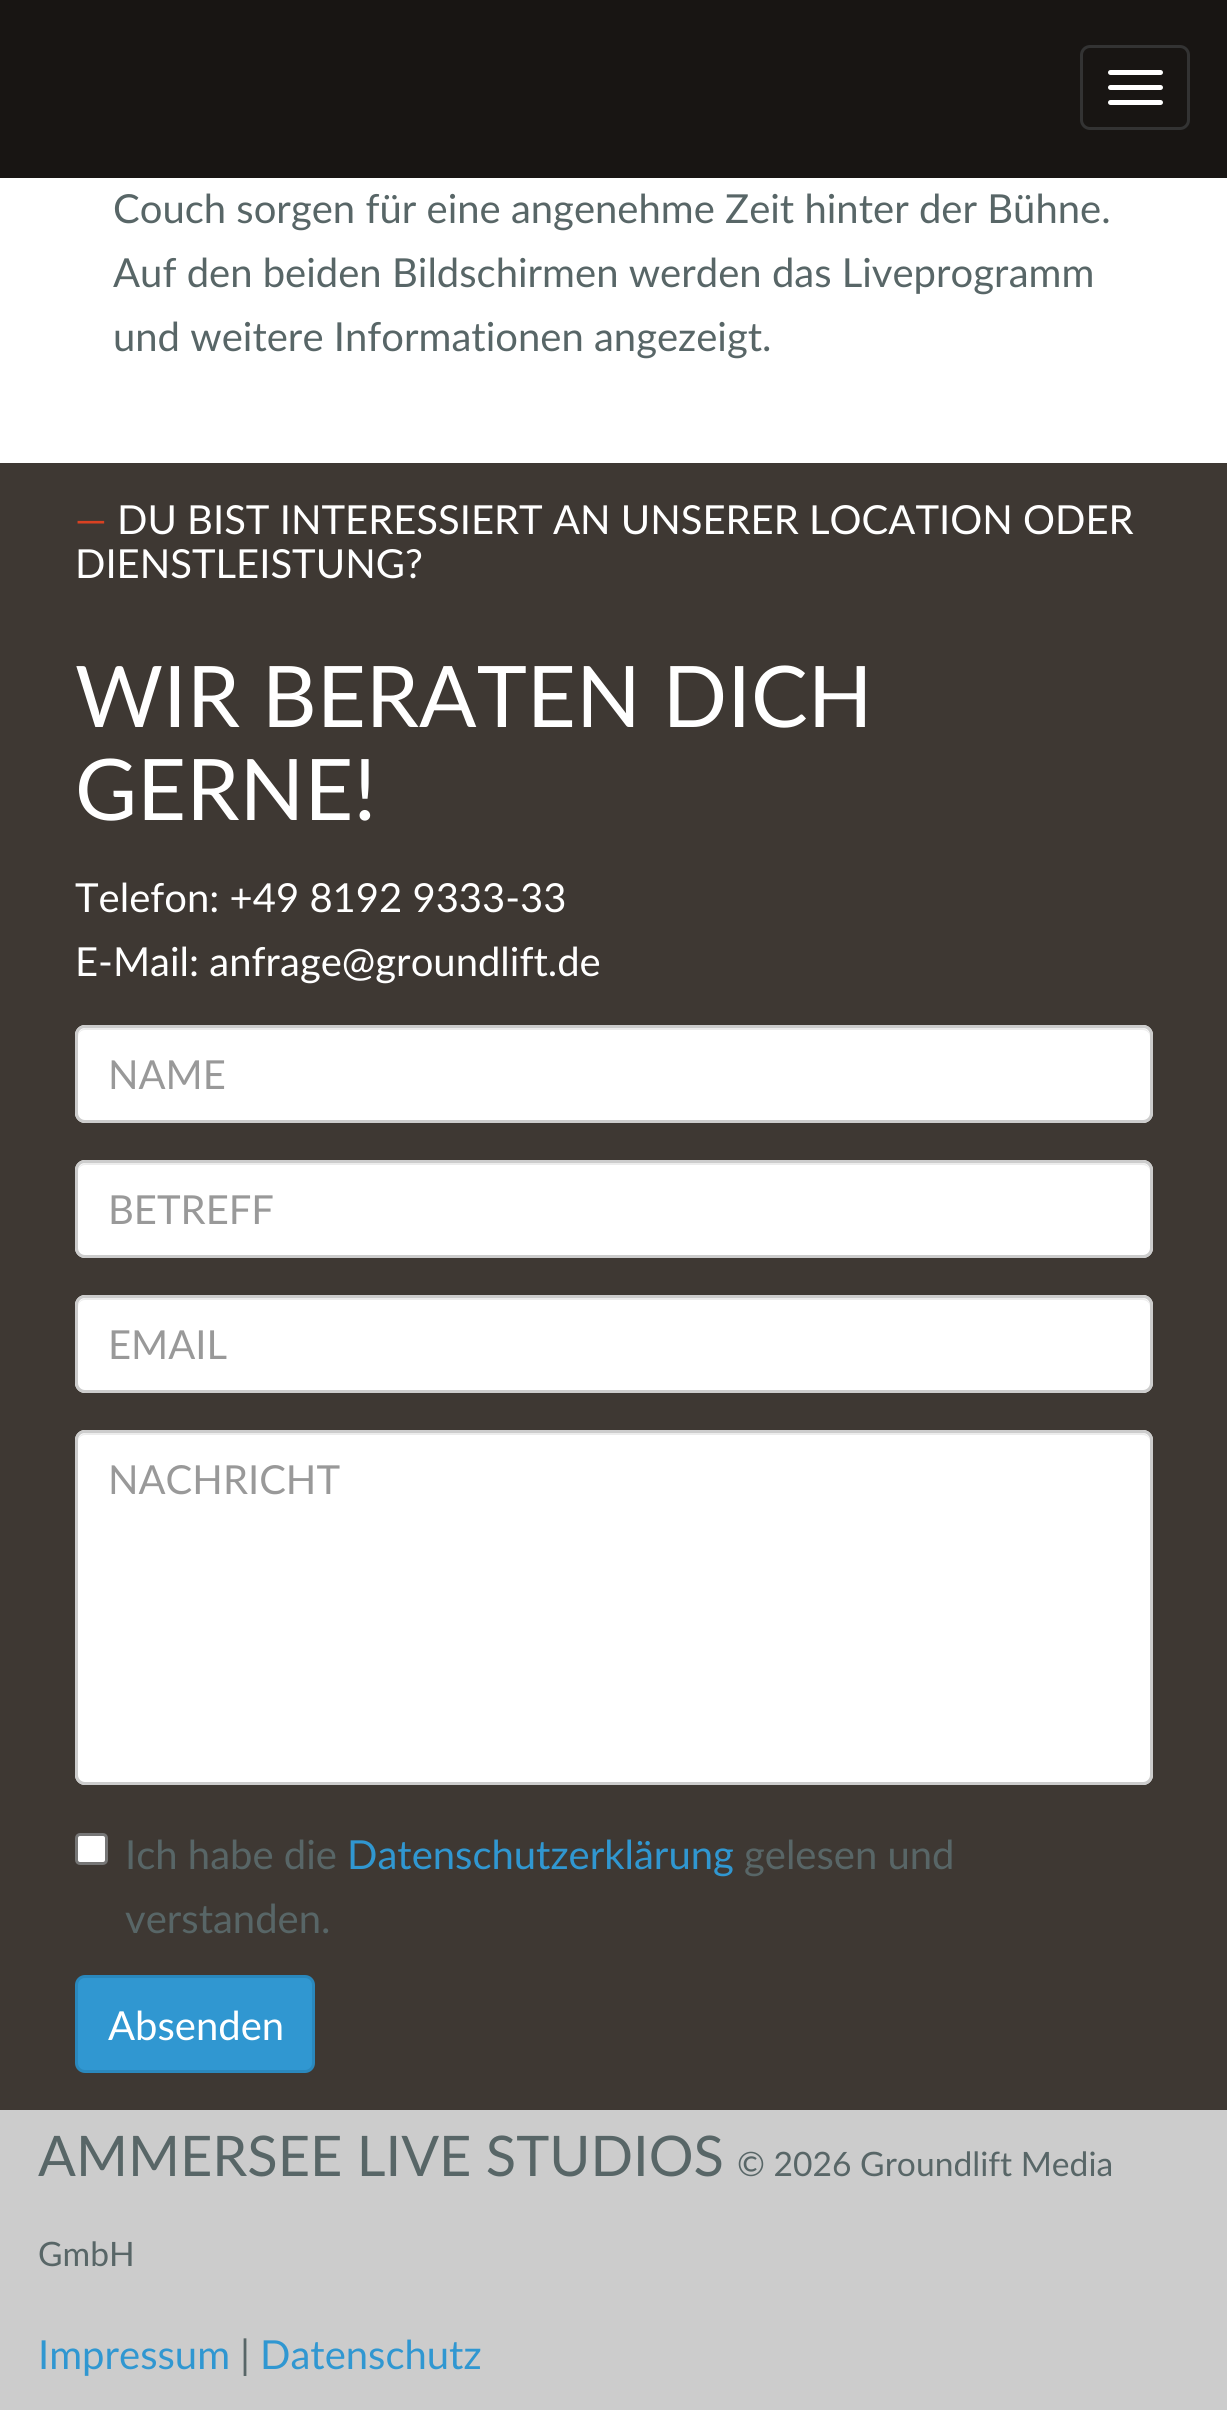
import math
import cairocffi as cairo

surface = cairo.ImageSurface(cairo.FORMAT_RGB24, 1227, 2417)
cr = cairo.Context(surface)
options = cairo.FontOptions()
options.set_hint_metrics(cairo.HINT_METRICS_OFF)
options.set_hint_style(cairo.HINT_STYLE_NONE)
cr.set_font_options(options)
cr.set_miter_limit(4)


def use_color(code):
    cr.set_source_rgb(*(v / 255 for v in bytes.fromhex(code[-6:])))


def round_rect(x, y, w, h, r):
    cr.new_sub_path()
    for i, (u, v) in enumerate([(x + w - r, y + h - r), (x + r, y + h - r), (x + r, y + r), (x + w - r, y + r)]):
        cr.arc(u, v, r, i * math.pi / 2, (i + 1) * math.pi / 2)
    cr.close_path()


use_color("#ffffff")
cr.paint()
use_color("#181513")
cr.rectangle(0, 0, 1227, 178)
cr.fill()
round_rect(1081.5, 46.5, 107, 82, 8.5)
use_color("#333333")
cr.set_line_width(3)
cr.stroke()
use_color("#ffffff")
round_rect(1108, 70, 55, 5, 2.5)
cr.fill()
round_rect(1108, 85, 55, 5, 2.5)
cr.fill()
round_rect(1108, 100, 55, 5, 2.5)
cr.fill()
cr.select_font_face("Lato")
cr.set_font_size(40)
use_color("#586667")
cr.move_to(113, 223)
cr.show_text("Couch sorgen für eine angenehme Zeit hinter der Bühne.")
cr.move_to(113, 287)
cr.show_text("Auf den beiden Bildschirmen werden das Liveprogramm")
cr.move_to(113, 351)
cr.show_text("und weitere Informationen angezeigt.")
use_color("#3e3833")
cr.rectangle(0, 463, 1227, 1647)
cr.fill()
use_color("#d94122")
cr.move_to(75, 534)
cr.show_text("—")
use_color("#ffffff")
cr.move_to(117, 534)
cr.show_text("DU BIST INTERESSIERT AN UNSERER LOCATION ODER")
cr.move_to(75, 578)
cr.show_text("DIENSTLEISTUNG?")
cr.set_font_size(85)
cr.move_to(75, 727)
cr.show_text("WIR BERATEN DICH")
cr.move_to(75, 820)
cr.show_text("GERNE!")
cr.set_font_size(40)
cr.move_to(75, 912)
cr.show_text("Telefon: +49 8192 9333-33")
cr.move_to(75, 976)
cr.show_text("E-Mail: anfrage@groundlift.de")
round_rect(75, 1025, 1078, 98, 10)
cr.fill()
use_color("#ececec")
cr.new_path()
cr.move_to(85, 1030)
cr.line_to(1142, 1030)
cr.curve_to(1147, 1030, 1150, 1033, 1150, 1038)
cr.line_to(1150, 1036)
cr.curve_to(1150, 1032, 1146, 1028, 1142, 1028)
cr.line_to(86, 1028)
cr.curve_to(82, 1028, 78, 1032, 78, 1036)
cr.line_to(78, 1038)
cr.curve_to(78, 1033, 81, 1030, 85, 1030)
cr.close_path()
cr.fill()
round_rect(76.5, 1026.5, 1075, 95, 8.5)
use_color("#cccccc")
cr.stroke()
use_color("#999999")
cr.move_to(108, 1089)
cr.show_text("NAME")
use_color("#ffffff")
round_rect(75, 1160, 1078, 98, 10)
cr.fill()
use_color("#ececec")
cr.new_path()
cr.move_to(85, 1165)
cr.line_to(1142, 1165)
cr.curve_to(1147, 1165, 1150, 1168, 1150, 1172)
cr.line_to(1150, 1171)
cr.curve_to(1150, 1167, 1146, 1163, 1142, 1163)
cr.line_to(86, 1163)
cr.curve_to(82, 1163, 78, 1167, 78, 1171)
cr.line_to(78, 1172)
cr.curve_to(78, 1168, 81, 1165, 85, 1165)
cr.close_path()
cr.fill()
round_rect(76.5, 1161.5, 1075, 95, 8.5)
use_color("#cccccc")
cr.stroke()
use_color("#999999")
cr.move_to(108, 1224)
cr.show_text("BETREFF")
use_color("#ffffff")
round_rect(75, 1295, 1078, 98, 10)
cr.fill()
use_color("#ececec")
cr.new_path()
cr.move_to(85, 1300)
cr.line_to(1142, 1300)
cr.curve_to(1147, 1300, 1150, 1303, 1150, 1308)
cr.line_to(1150, 1306)
cr.curve_to(1150, 1302, 1146, 1298, 1142, 1298)
cr.line_to(86, 1298)
cr.curve_to(82, 1298, 78, 1302, 78, 1306)
cr.line_to(78, 1308)
cr.curve_to(78, 1303, 81, 1300, 85, 1300)
cr.close_path()
cr.fill()
round_rect(76.5, 1296.5, 1075, 95, 8.5)
use_color("#cccccc")
cr.stroke()
use_color("#999999")
cr.move_to(108, 1359)
cr.show_text("EMAIL")
use_color("#ffffff")
round_rect(75, 1430, 1078, 355, 10)
cr.fill()
use_color("#ececec")
cr.new_path()
cr.move_to(85, 1435)
cr.line_to(1142, 1435)
cr.curve_to(1147, 1435, 1150, 1438, 1150, 1442)
cr.line_to(1150, 1441)
cr.curve_to(1150, 1437, 1146, 1433, 1142, 1433)
cr.line_to(86, 1433)
cr.curve_to(82, 1433, 78, 1437, 78, 1441)
cr.line_to(78, 1442)
cr.curve_to(78, 1438, 81, 1435, 85, 1435)
cr.close_path()
cr.fill()
round_rect(76.5, 1431.5, 1075, 352, 8.5)
use_color("#cccccc")
cr.stroke()
use_color("#999999")
cr.move_to(108, 1494)
cr.show_text("NACHRICHT")
use_color("#ffffff")
round_rect(76.5, 1834.5, 30, 29, 3.5)
cr.fill_preserve()
use_color("#767676")
cr.stroke()
use_color("#586667")
cr.move_to(125, 1869)
cr.show_text("Ich habe die")
use_color("#3097d1")
cr.move_to(347, 1869)
cr.show_text("Datenschutzerklärung")
use_color("#586667")
cr.move_to(744, 1869)
cr.show_text("gelesen und")
cr.move_to(125, 1933)
cr.show_text("verstanden.")
use_color("#3097d1")
round_rect(76.5, 1976.5, 237, 95, 8.5)
cr.fill_preserve()
use_color("#2a88bd")
cr.stroke()
use_color("#ffffff")
cr.move_to(108, 2040)
cr.show_text("Absenden")
use_color("#cccccc")
cr.rectangle(0, 2110, 1227, 300)
cr.fill()
cr.set_font_size(56)
use_color("#586667")
cr.move_to(38, 2176)
cr.show_text("AMMERSEE LIVE STUDIOS")
cr.set_font_size(33.6)
cr.move_to(737, 2176)
cr.show_text("© 2026 Groundlift Media")
cr.move_to(38, 2266)
cr.show_text("GmbH")
cr.set_font_size(40)
use_color("#3097d1")
cr.move_to(38, 2369)
cr.show_text("Impressum")
use_color("#586667")
cr.move_to(240, 2369)
cr.show_text("|")
use_color("#3097d1")
cr.move_to(260, 2369)
cr.show_text("Datenschutz")
surface.write_to_png("result.png")
